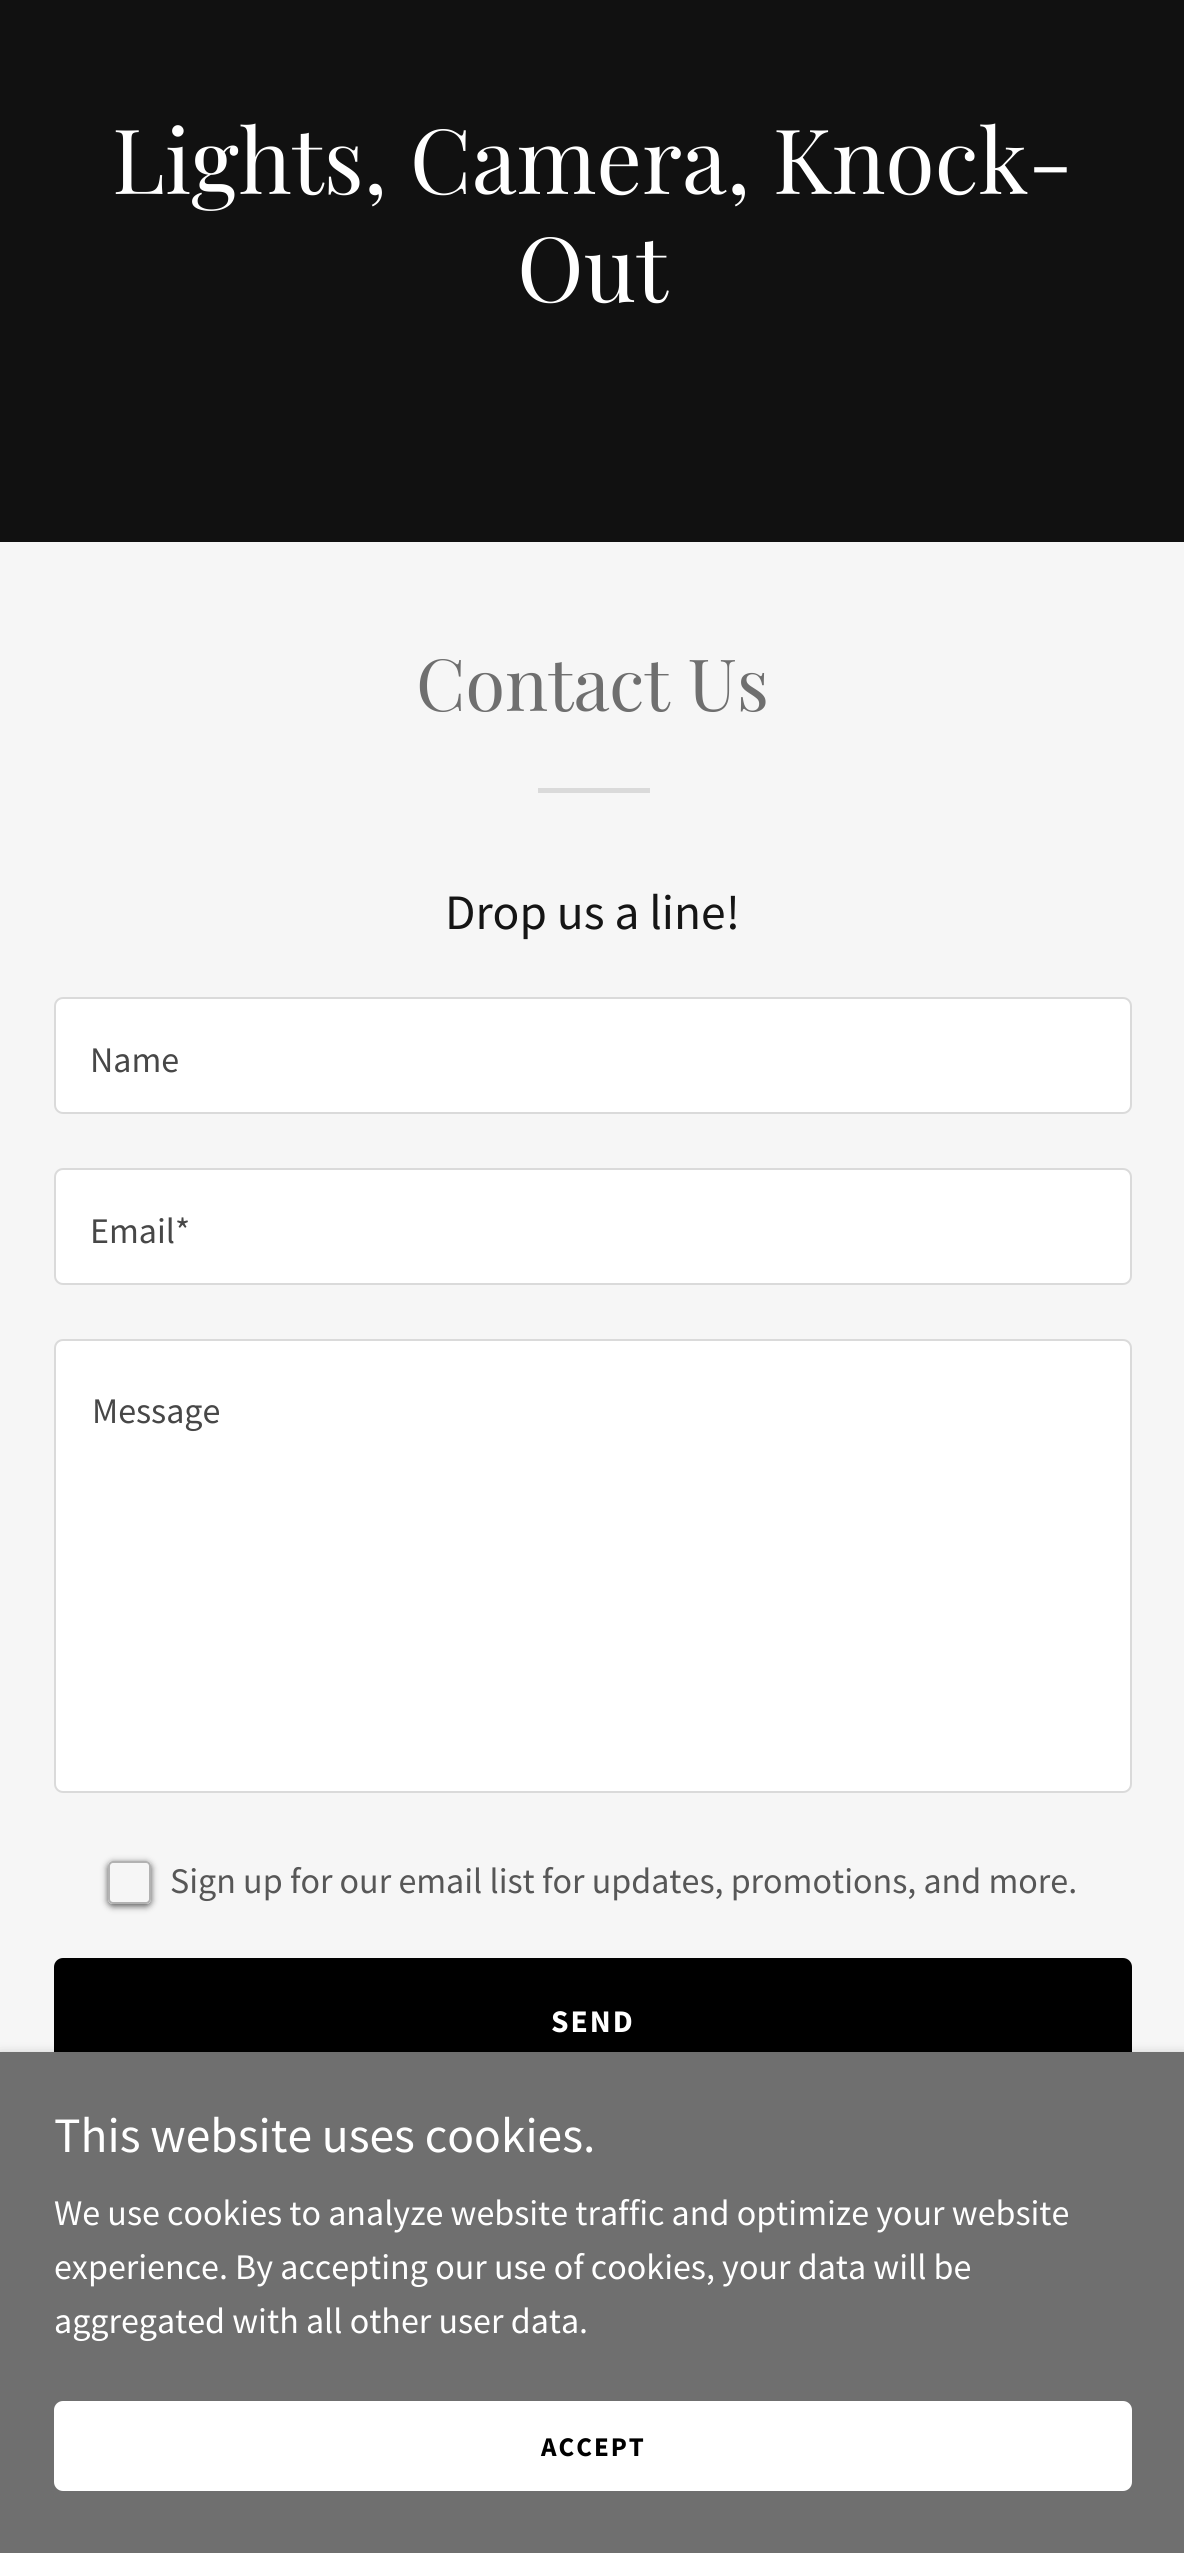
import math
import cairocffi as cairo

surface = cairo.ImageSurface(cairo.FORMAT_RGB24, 1184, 2553)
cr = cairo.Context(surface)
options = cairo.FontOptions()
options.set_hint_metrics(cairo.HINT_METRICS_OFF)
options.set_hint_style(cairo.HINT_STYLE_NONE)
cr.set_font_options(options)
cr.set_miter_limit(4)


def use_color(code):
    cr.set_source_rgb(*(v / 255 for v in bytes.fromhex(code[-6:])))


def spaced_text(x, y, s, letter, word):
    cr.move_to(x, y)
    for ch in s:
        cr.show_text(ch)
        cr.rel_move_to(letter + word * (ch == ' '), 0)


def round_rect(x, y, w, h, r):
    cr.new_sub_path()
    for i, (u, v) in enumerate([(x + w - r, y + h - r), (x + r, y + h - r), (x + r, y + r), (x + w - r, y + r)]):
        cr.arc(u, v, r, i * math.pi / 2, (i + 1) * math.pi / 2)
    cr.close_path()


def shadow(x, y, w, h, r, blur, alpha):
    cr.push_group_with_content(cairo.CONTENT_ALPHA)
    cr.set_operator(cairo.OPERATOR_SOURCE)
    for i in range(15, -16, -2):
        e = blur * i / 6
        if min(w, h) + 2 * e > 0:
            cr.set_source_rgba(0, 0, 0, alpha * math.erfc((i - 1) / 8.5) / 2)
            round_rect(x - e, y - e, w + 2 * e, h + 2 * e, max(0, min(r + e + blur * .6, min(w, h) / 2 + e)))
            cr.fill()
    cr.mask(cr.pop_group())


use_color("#f6f6f6")
cr.paint()
use_color("#111111")
cr.rectangle(0, 0, 1184, 542)
cr.fill()
cr.select_font_face("Playfair Display")
cr.set_font_size(90)
use_color("#ffffff")
cr.move_to(112, 194)
cr.show_text("Lights, Camera, Knock-")
cr.move_to(517, 302)
cr.show_text("Out")
cr.set_font_size(72)
use_color("#6f6f6f")
cr.move_to(416, 711)
cr.show_text("Contact Us")
use_color("#dadada")
cr.rectangle(538, 788, 112, 5)
cr.fill()
cr.select_font_face("Source Sans Pro")
cr.set_font_size(49.5)
use_color("#151515")
cr.move_to(445, 929)
cr.show_text("Drop us a line!")
use_color("#ffffff")
round_rect(55, 998, 1076, 115, 8)
cr.fill_preserve()
use_color("#dadada")
cr.stroke()
cr.set_font_size(36)
use_color("#474747")
cr.move_to(90, 1072)
cr.show_text("Name")
use_color("#ffffff")
round_rect(55, 1169, 1076, 115, 8)
cr.fill_preserve()
use_color("#dadada")
cr.stroke()
use_color("#474747")
cr.move_to(90, 1243)
cr.show_text("Email*")
use_color("#ffffff")
round_rect(55, 1340, 1076, 452, 8)
cr.fill_preserve()
use_color("#dadada")
cr.stroke()
use_color("#474747")
cr.move_to(92, 1423)
cr.show_text("Message")
cr.save()
cr.set_fill_rule(cairo.FILL_RULE_EVEN_ODD)
cr.new_path()
cr.move_to(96, 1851)
cr.line_to(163, 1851)
cr.line_to(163, 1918)
cr.line_to(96, 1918)
cr.close_path()
cr.move_to(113, 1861)
cr.line_to(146, 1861)
cr.curve_to(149, 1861, 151, 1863, 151, 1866)
cr.line_to(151, 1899)
cr.curve_to(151, 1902, 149, 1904, 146, 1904)
cr.line_to(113, 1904)
cr.curve_to(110, 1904, 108, 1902, 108, 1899)
cr.line_to(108, 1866)
cr.curve_to(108, 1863, 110, 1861, 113, 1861)
cr.close_path()
cr.clip()
use_color("#525252")
shadow(108, 1863, 43, 43, 5, 3.5, 1)
cr.restore()
round_rect(109, 1862, 41, 41, 4)
cr.set_source_rgba(0.435, 0.435, 0.435, 0.5)
cr.stroke()
use_color("#575757")
cr.move_to(170, 1893)
cr.show_text("Sign up for our email list for updates, promotions, and more.")
use_color("#000000")
round_rect(54, 1958, 1078, 126, 9)
cr.fill()
cr.select_font_face("Source Sans Pro", cairo.FONT_SLANT_NORMAL, cairo.FONT_WEIGHT_BOLD)
cr.set_font_size(31.5)
use_color("#ffffff")
spaced_text(551, 2032, "SEND", 2, 0)
use_color("#000000")
shadow(0, 2057, 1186, 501, 0, 7, 0.3)
use_color("#6f6f6f")
cr.rectangle(0, 2052, 1184, 501)
cr.fill()
cr.select_font_face("Source Sans Pro")
cr.set_font_size(49.5)
use_color("#ffffff")
cr.move_to(54, 2152)
cr.show_text("This website uses cookies.")
cr.set_font_size(36)
cr.move_to(54, 2225)
cr.show_text("We use cookies to analyze website traffic and optimize your website")
cr.move_to(54, 2279)
cr.show_text("experience. By accepting our use of cookies, your data will be")
cr.move_to(54, 2333)
cr.show_text("aggregated with all other user data.")
round_rect(54, 2401, 1078, 90, 9)
cr.fill()
cr.select_font_face("Source Sans Pro", cairo.FONT_SLANT_NORMAL, cairo.FONT_WEIGHT_BOLD)
cr.set_font_size(27)
use_color("#000000")
spaced_text(541, 2456, "ACCEPT", 2, 0)
surface.write_to_png("result.png")
